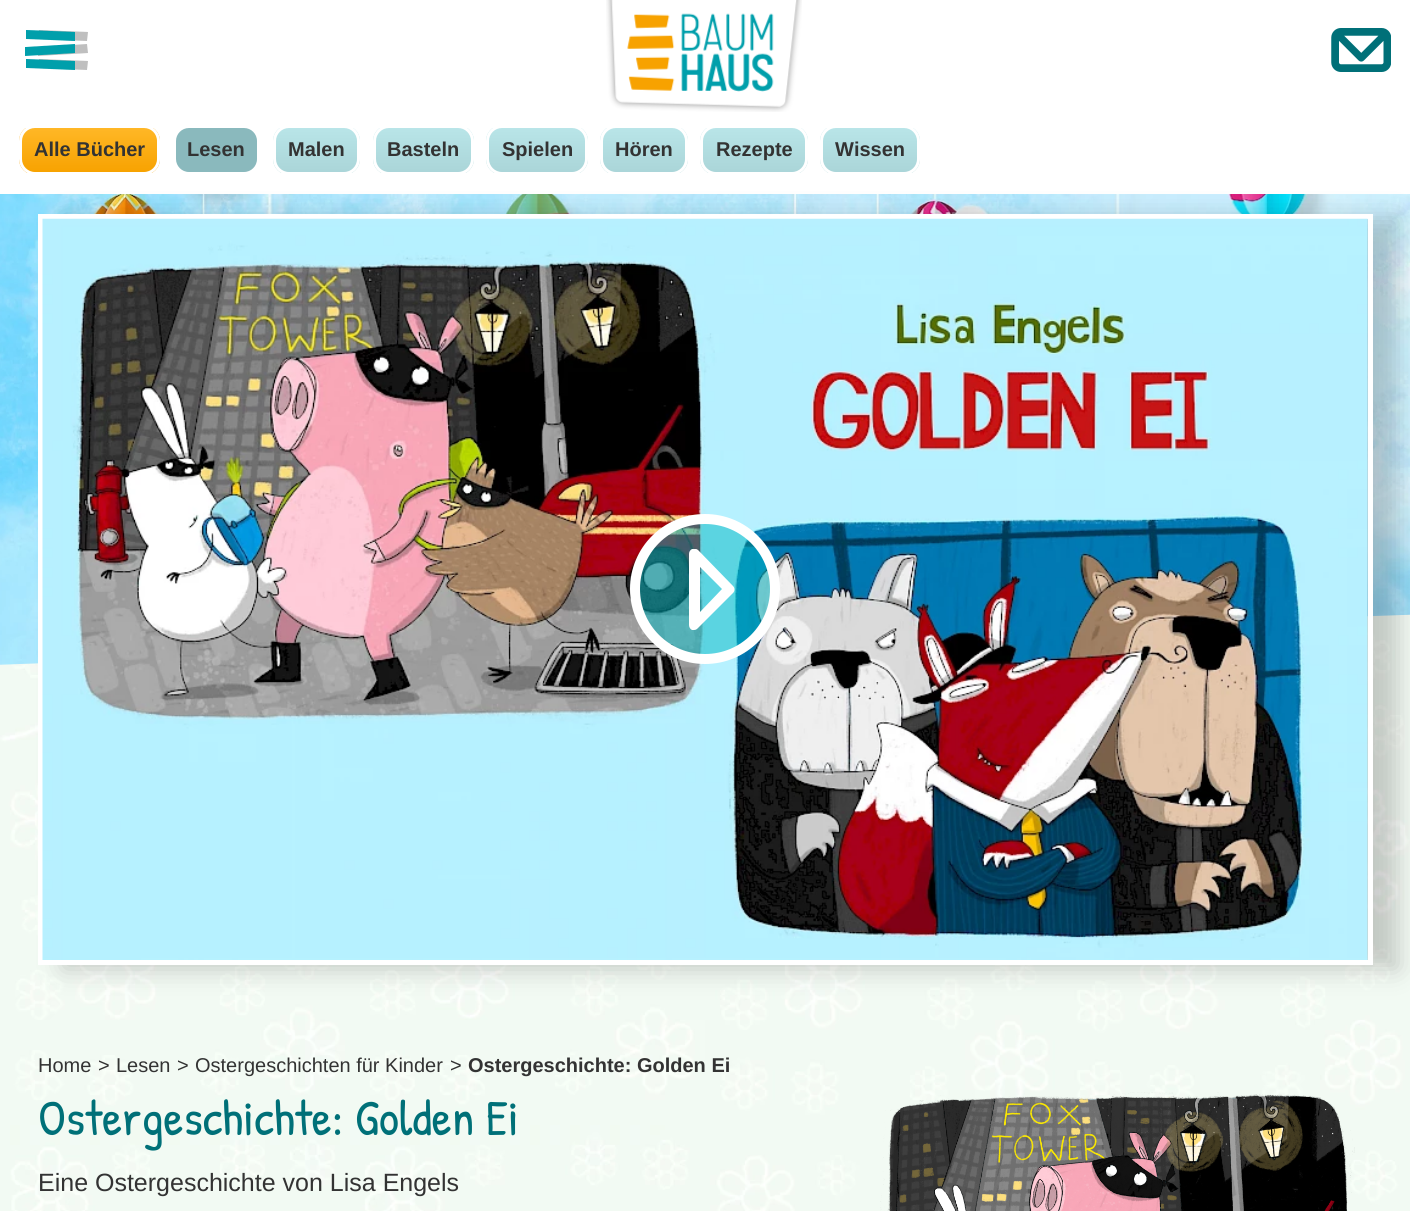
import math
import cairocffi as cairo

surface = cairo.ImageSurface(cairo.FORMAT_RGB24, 1410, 1211)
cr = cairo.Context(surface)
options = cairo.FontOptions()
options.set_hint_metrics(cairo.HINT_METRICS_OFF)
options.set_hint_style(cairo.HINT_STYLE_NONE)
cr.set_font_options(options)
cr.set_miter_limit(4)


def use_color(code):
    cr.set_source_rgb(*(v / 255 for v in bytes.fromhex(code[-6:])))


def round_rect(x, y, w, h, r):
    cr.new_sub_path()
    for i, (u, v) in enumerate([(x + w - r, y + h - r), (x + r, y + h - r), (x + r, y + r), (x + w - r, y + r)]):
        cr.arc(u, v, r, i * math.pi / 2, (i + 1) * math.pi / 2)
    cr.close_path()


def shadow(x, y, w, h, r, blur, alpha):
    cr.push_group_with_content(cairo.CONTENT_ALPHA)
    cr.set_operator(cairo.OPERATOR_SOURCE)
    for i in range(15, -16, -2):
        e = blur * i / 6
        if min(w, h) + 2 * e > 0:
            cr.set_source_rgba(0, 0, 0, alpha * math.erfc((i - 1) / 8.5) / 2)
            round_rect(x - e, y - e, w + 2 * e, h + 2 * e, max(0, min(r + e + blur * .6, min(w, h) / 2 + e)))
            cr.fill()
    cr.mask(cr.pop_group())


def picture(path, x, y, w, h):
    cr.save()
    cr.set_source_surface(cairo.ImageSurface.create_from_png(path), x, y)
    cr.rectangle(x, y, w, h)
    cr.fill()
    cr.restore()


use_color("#ffffff")
cr.paint()
use_color("#bfbfbf")
cr.new_path()
cr.move_to(39, 30)
cr.line_to(88, 32)
cr.line_to(87, 41)
cr.line_to(38, 39)
cr.close_path()
cr.move_to(38, 47)
cr.line_to(87, 44)
cr.line_to(88, 53)
cr.line_to(38, 56)
cr.close_path()
cr.move_to(39, 59)
cr.line_to(88, 61)
cr.line_to(87, 70)
cr.line_to(38, 68)
cr.close_path()
cr.fill()
use_color("#009fab")
cr.new_path()
cr.move_to(26, 30)
cr.line_to(75, 32)
cr.line_to(75, 41)
cr.line_to(26, 39)
cr.close_path()
cr.move_to(25, 47)
cr.line_to(75, 44)
cr.line_to(75, 53)
cr.line_to(25, 56)
cr.close_path()
cr.move_to(26, 59)
cr.line_to(75, 61)
cr.line_to(75, 70)
cr.line_to(26, 68)
cr.close_path()
cr.fill()
picture("img1.png", 606, 0, 196, 112)
picture("img2.png", 1331, 28, 60, 44)
cr.save()
round_rect(19, 125, 141, 50, 16)
cr.clip()
gradient = cairo.LinearGradient(89, 128, 89, 173)
gradient.add_color_stop_rgba(0, 1, 0.718, 0.149, 1)
gradient.add_color_stop_rgba(1, 0.969, 0.635, 0, 1)
cr.set_source(gradient)
cr.rectangle(19, 128, 141, 45)
cr.fill()
cr.restore()
round_rect(20.5, 126.5, 138, 47, 14.5)
use_color("#ffffff")
cr.set_line_width(3)
cr.stroke()
cr.select_font_face("Liberation Sans", cairo.FONT_SLANT_NORMAL, cairo.FONT_WEIGHT_BOLD)
cr.set_font_size(20)
use_color("#333333")
cr.move_to(34, 156)
cr.show_text("Alle Bücher")
use_color("#8ab9bd")
round_rect(174.5, 126.5, 84, 47, 14.5)
cr.fill_preserve()
use_color("#ffffff")
cr.stroke()
use_color("#333333")
cr.move_to(187, 156)
cr.show_text("Lesen")
cr.save()
round_rect(273, 125, 87, 50, 16)
cr.clip()
gradient = cairo.LinearGradient(316, 128, 316, 173)
gradient.add_color_stop_rgba(0, 0.725, 0.898, 0.91, 1)
gradient.add_color_stop_rgba(1, 0.667, 0.835, 0.847, 1)
cr.set_source(gradient)
cr.rectangle(273, 128, 87, 45)
cr.fill()
cr.restore()
round_rect(274.5, 126.5, 84, 47, 14.5)
use_color("#ffffff")
cr.stroke()
use_color("#333333")
cr.move_to(288, 156)
cr.show_text("Malen")
cr.save()
round_rect(373, 125, 101, 50, 16)
cr.clip()
gradient = cairo.LinearGradient(423, 128, 423, 173)
gradient.add_color_stop_rgba(0, 0.725, 0.898, 0.91, 1)
gradient.add_color_stop_rgba(1, 0.667, 0.835, 0.847, 1)
cr.set_source(gradient)
cr.rectangle(373, 128, 101, 45)
cr.fill()
cr.restore()
round_rect(374.5, 126.5, 98, 47, 14.5)
use_color("#ffffff")
cr.stroke()
use_color("#333333")
cr.move_to(387, 156)
cr.show_text("Basteln")
cr.save()
round_rect(486, 125, 102, 50, 16)
cr.clip()
gradient = cairo.LinearGradient(537, 128, 537, 173)
gradient.add_color_stop_rgba(0, 0.725, 0.898, 0.91, 1)
gradient.add_color_stop_rgba(1, 0.667, 0.835, 0.847, 1)
cr.set_source(gradient)
cr.rectangle(486, 128, 102, 45)
cr.fill()
cr.restore()
round_rect(487.5, 126.5, 99, 47, 14.5)
use_color("#ffffff")
cr.stroke()
use_color("#333333")
cr.move_to(502, 156)
cr.show_text("Spielen")
cr.save()
round_rect(600, 125, 88, 50, 16)
cr.clip()
gradient = cairo.LinearGradient(644, 128, 644, 173)
gradient.add_color_stop_rgba(0, 0.725, 0.898, 0.91, 1)
gradient.add_color_stop_rgba(1, 0.667, 0.835, 0.847, 1)
cr.set_source(gradient)
cr.rectangle(600, 128, 88, 45)
cr.fill()
cr.restore()
round_rect(601.5, 126.5, 85, 47, 14.5)
use_color("#ffffff")
cr.stroke()
use_color("#333333")
cr.move_to(615, 156)
cr.show_text("Hören")
cr.save()
round_rect(700, 125, 108, 50, 16)
cr.clip()
gradient = cairo.LinearGradient(754, 128, 754, 173)
gradient.add_color_stop_rgba(0, 0.725, 0.898, 0.91, 1)
gradient.add_color_stop_rgba(1, 0.667, 0.835, 0.847, 1)
cr.set_source(gradient)
cr.rectangle(700, 128, 108, 45)
cr.fill()
cr.restore()
round_rect(701.5, 126.5, 105, 47, 14.5)
use_color("#ffffff")
cr.stroke()
use_color("#333333")
cr.move_to(716, 156)
cr.show_text("Rezepte")
cr.save()
round_rect(820, 125, 100, 50, 16)
cr.clip()
gradient = cairo.LinearGradient(870, 128, 870, 173)
gradient.add_color_stop_rgba(0, 0.725, 0.898, 0.91, 1)
gradient.add_color_stop_rgba(1, 0.667, 0.835, 0.847, 1)
cr.set_source(gradient)
cr.rectangle(820, 128, 100, 45)
cr.fill()
cr.restore()
round_rect(821.5, 126.5, 97, 47, 14.5)
use_color("#ffffff")
cr.stroke()
use_color("#333333")
cr.move_to(835, 156)
cr.show_text("Wissen")
picture("img5.png", 0, 614, 1410, 597)
picture("img4.png", 0, 194, 1410, 471)
use_color("#000000")
shadow(63, 218, 1335, 751, 0, 12.5, 0.2)
cr.rectangle(40.5, 216.5, 1330, 746)
use_color("#ffffff")
cr.set_line_width(5)
cr.stroke()
picture("img3.png", 42, 218, 1326, 742)
cr.set_source_rgba(0, 0.725, 0.769, 0.5)
cr.arc(705, 589, 70, 0, 2 * math.pi)
cr.fill_preserve()
use_color("#ffffff")
cr.set_line_width(10)
cr.stroke()
cr.save()
cr.rectangle(665, 549, 81, 81)
cr.clip()
cr.new_path()
cr.move_to(733, 586)
cr.line_to(698, 550)
cr.curve_to(697, 549, 694, 548, 692, 549)
cr.curve_to(690, 550, 689, 552, 689, 554)
cr.line_to(689, 625)
cr.curve_to(689, 627, 690, 629, 692, 630)
cr.line_to(694, 630)
cr.curve_to(696, 630, 697, 629, 698, 628)
cr.line_to(733, 593)
cr.curve_to(735, 591, 735, 588, 733, 586)
cr.close_path()
cr.move_to(722, 589)
cr.line_to(700, 612)
cr.line_to(700, 567)
cr.close_path()
cr.fill()
cr.restore()
cr.select_font_face("Liberation Sans")
use_color("#333333")
cr.move_to(38, 1072)
cr.show_text("Home")
cr.move_to(98, 1072)
cr.show_text(">")
cr.move_to(116, 1072)
cr.show_text("Lesen")
cr.move_to(177, 1072)
cr.show_text(">")
cr.move_to(195, 1072)
cr.show_text("Ostergeschichten für Kinder")
cr.move_to(450, 1072)
cr.show_text(">")
cr.select_font_face("Liberation Sans", cairo.FONT_SLANT_NORMAL, cairo.FONT_WEIGHT_BOLD)
cr.move_to(468, 1072)
cr.show_text("Ostergeschichte: Golden Ei")
cr.select_font_face("Patrick Hand")
cr.set_font_size(50)
use_color("#007078")
cr.move_to(38, 1135)
cr.show_text("Ostergeschichte: Golden Ei")
cr.select_font_face("Liberation Sans")
cr.set_font_size(25)
use_color("#333333")
cr.move_to(38, 1191)
cr.show_text("Eine Ostergeschichte von Lisa Engels")
picture("img6.png", 880, 1092, 475, 119)
surface.write_to_png("result.png")
